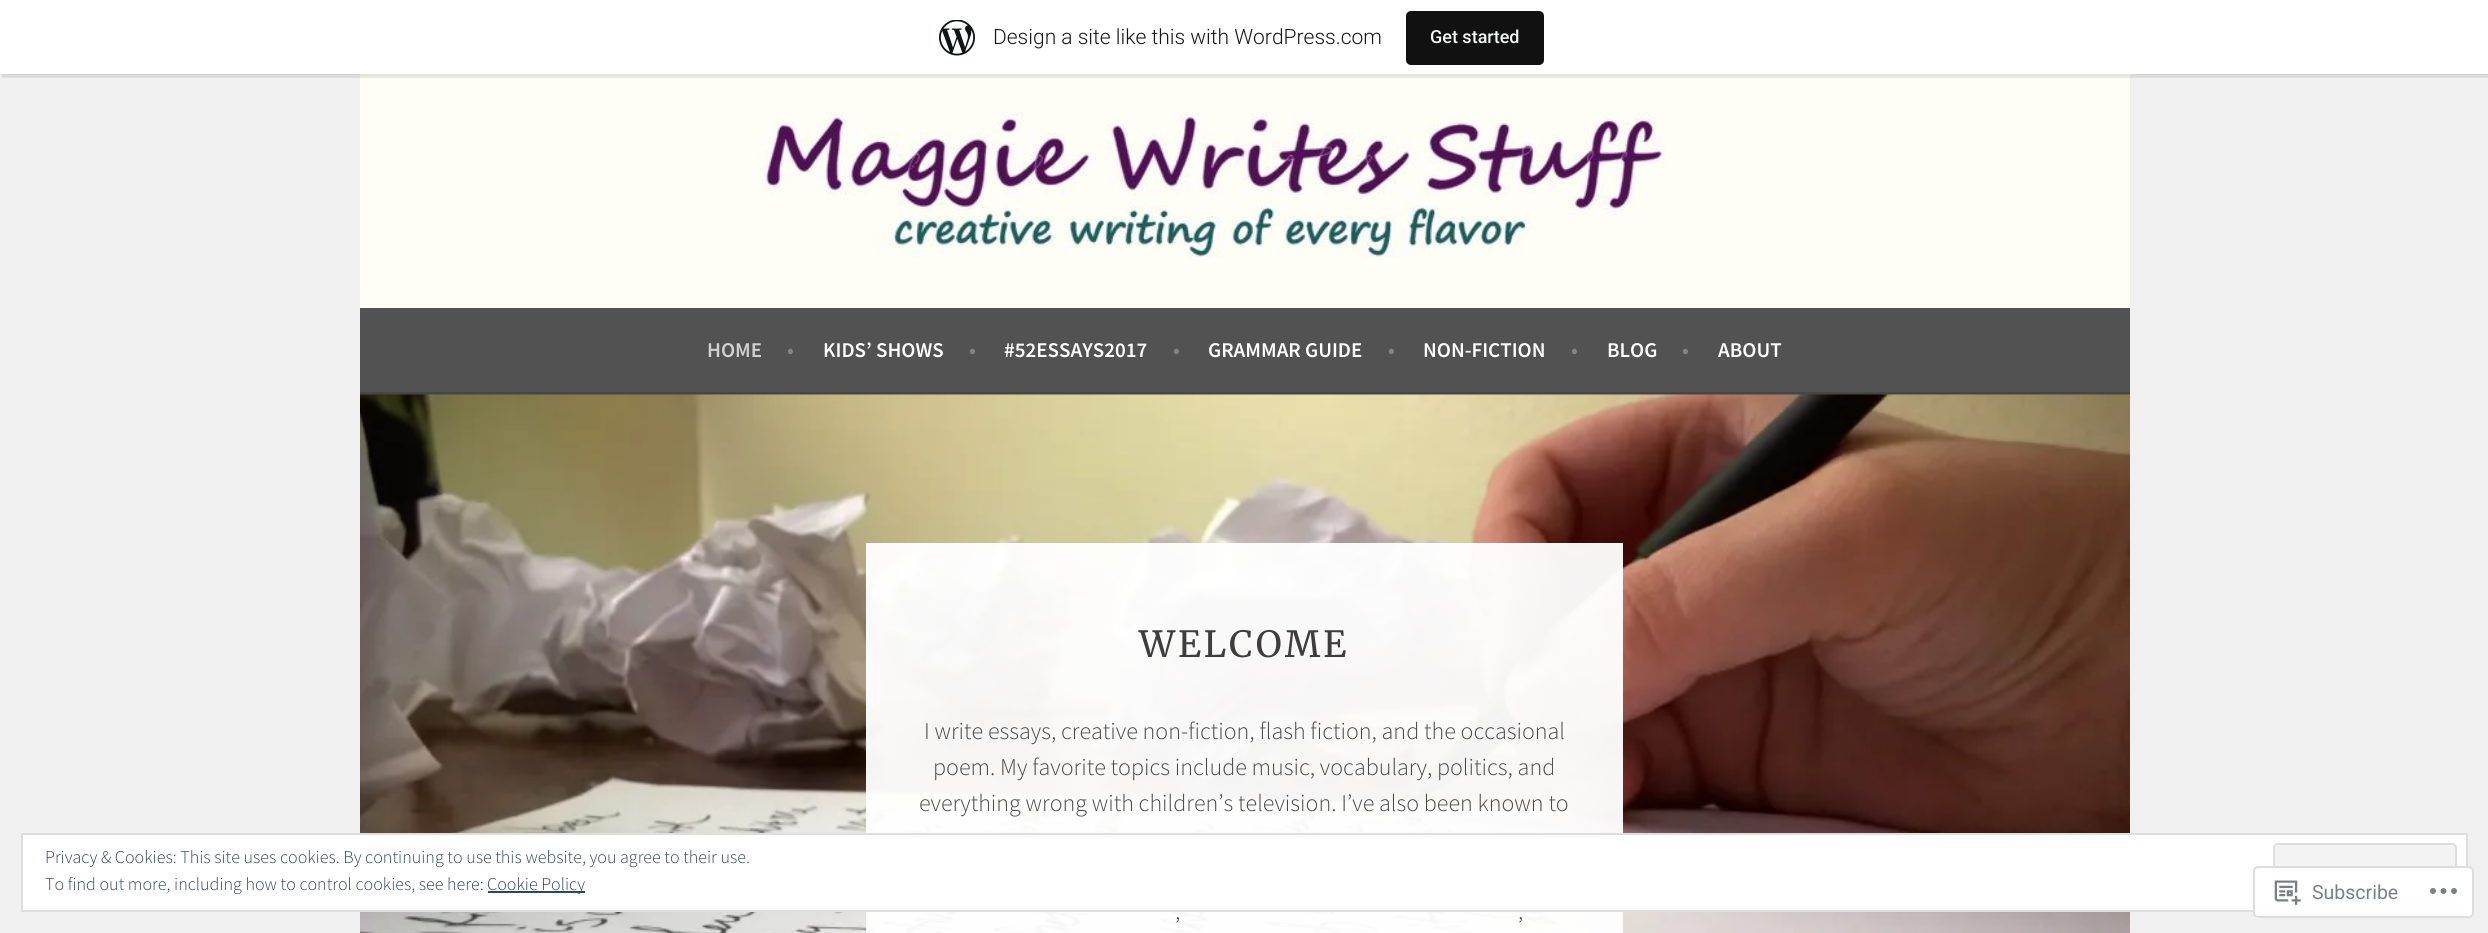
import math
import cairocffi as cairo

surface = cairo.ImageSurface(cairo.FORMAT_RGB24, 2488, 933)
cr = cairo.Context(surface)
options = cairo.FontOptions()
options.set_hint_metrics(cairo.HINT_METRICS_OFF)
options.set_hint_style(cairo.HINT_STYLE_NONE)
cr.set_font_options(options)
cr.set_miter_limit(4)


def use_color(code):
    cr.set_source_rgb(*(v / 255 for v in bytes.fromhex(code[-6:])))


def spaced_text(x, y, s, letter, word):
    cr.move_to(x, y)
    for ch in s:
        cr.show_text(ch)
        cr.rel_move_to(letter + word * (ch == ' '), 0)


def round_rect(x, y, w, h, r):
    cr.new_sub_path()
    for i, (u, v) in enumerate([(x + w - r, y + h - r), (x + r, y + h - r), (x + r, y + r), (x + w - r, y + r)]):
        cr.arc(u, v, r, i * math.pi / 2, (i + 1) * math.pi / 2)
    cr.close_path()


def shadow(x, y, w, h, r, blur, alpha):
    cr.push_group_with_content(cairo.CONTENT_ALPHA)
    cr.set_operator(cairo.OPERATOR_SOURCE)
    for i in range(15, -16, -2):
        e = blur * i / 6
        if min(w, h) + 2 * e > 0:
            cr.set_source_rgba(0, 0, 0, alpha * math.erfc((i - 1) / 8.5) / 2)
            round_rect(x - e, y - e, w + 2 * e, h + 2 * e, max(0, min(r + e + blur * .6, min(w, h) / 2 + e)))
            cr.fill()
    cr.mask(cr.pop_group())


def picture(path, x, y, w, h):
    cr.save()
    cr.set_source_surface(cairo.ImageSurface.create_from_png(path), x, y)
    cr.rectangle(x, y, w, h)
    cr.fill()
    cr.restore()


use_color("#f0f0f0")
cr.paint()
use_color("#ffffff")
cr.rectangle(360, 307, 1770, 1)
cr.fill()
picture("img2.png", 360, 74, 1770, 234)
use_color("#000000")
shadow(0, 2, 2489, 73, 0, 1.5, 0.05)
cr.set_source_rgba(0, 0, 0, 0.08)
cr.new_path()
cr.move_to(2, 74)
cr.line_to(2, 78)
cr.line_to(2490, 78)
cr.line_to(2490, 5)
cr.line_to(2488, 5)
cr.line_to(2488, 74)
cr.close_path()
cr.fill()
use_color("#ffffff")
cr.rectangle(0, 0, 2488, 74)
cr.fill()
picture("img1.png", 939, 20, 36, 36)
cr.select_font_face("Roboto Light")
cr.set_font_size(21)
use_color("#171717")
cr.move_to(993, 44)
cr.show_text("Design a site like this with WordPress.com")
use_color("#111111")
round_rect(1406, 11, 138, 54, 5)
cr.fill()
cr.select_font_face("Roboto Medium")
cr.set_font_size(18)
use_color("#f6f7f7")
cr.move_to(1430, 43)
cr.show_text("Get started")
use_color("#464646")
cr.rectangle(360, 392, 1770, 3)
cr.fill()
picture("img3.png", 360, 394, 1770, 539)
cr.set_source_rgba(1, 1, 1, 0.95)
cr.rectangle(866, 543, 757, 390)
cr.fill()
use_color("#ffffff")
cr.rectangle(22, 834, 2445, 77)
cr.fill_preserve()
use_color("#dedede")
cr.stroke()
cr.select_font_face("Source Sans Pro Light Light")
use_color("#2e4467")
cr.move_to(45, 863)
cr.show_text("Privacy & Cookies: This site uses cookies. By continuing to use this website, you agree to their use.")
use_color("#f3f3f3")
round_rect(2273, 843, 184, 59, 5)
cr.fill()
use_color("#dbdbdb")
cr.new_path()
cr.move_to(2274, 894)
cr.line_to(2274, 897)
cr.curve_to(2274, 899, 2275, 900, 2277, 900)
cr.line_to(2453, 900)
cr.curve_to(2455, 900, 2456, 899, 2456, 897)
cr.line_to(2456, 894)
cr.curve_to(2456, 896, 2454, 897, 2452, 897)
cr.line_to(2277, 897)
cr.curve_to(2275, 897, 2274, 896, 2274, 894)
cr.close_path()
cr.fill()
round_rect(2274, 844, 182, 57, 4)
use_color("#dedede")
cr.stroke()
use_color("#2e4467")
cr.move_to(45, 890)
cr.show_text("To find out more, including how to control cookies, see here:")
cr.rectangle(488, 891, 97, 2)
cr.fill()
cr.move_to(487, 890)
cr.show_text("Cookie Policy")
use_color("#525252")
cr.rectangle(360, 308, 1770, 84)
cr.fill()
cr.select_font_face("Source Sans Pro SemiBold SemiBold")
cr.set_font_size(21)
use_color("#d1d1d1")
cr.move_to(707, 357)
cr.show_text("HOME")
use_color("#848484")
cr.move_to(787, 357)
cr.show_text("•")
use_color("#ffffff")
cr.move_to(823, 357)
cr.show_text("KIDS’ SHOWS")
use_color("#848484")
cr.move_to(969, 357)
cr.show_text("•")
use_color("#ffffff")
cr.move_to(1004, 357)
cr.show_text("#52ESSAYS2017")
use_color("#848484")
cr.move_to(1173, 357)
cr.show_text("•")
use_color("#ffffff")
cr.move_to(1208, 357)
cr.show_text("GRAMMAR GUIDE")
use_color("#848484")
cr.move_to(1388, 357)
cr.show_text("•")
use_color("#ffffff")
cr.move_to(1423, 357)
cr.show_text("NON-FICTION")
use_color("#848484")
cr.move_to(1571, 357)
cr.show_text("•")
use_color("#ffffff")
cr.move_to(1607, 357)
cr.show_text("BLOG")
use_color("#848484")
cr.move_to(1682, 357)
cr.show_text("•")
use_color("#ffffff")
cr.move_to(1718, 357)
cr.show_text("ABOUT")
cr.select_font_face("Merriweather Light")
cr.set_font_size(36)
use_color("#3d3d3d")
spaced_text(1139, 657, "WELCOME", 3, 0)
cr.select_font_face("Source Sans Pro Light Light")
cr.set_font_size(24)
use_color("#494949")
cr.move_to(924, 739)
cr.show_text("I write essays, creative non-fiction, flash fiction, and the occasional")
cr.move_to(933, 775)
cr.show_text("poem. My favorite topics include music, vocabulary, politics, and")
cr.move_to(919, 811)
cr.show_text("everything wrong with children’s television. I’ve also been known to")
cr.move_to(1175, 919)
cr.show_text(",")
cr.move_to(1518, 919)
cr.show_text(",")
cr.set_source_rgba(1, 1, 1, 0.98)
round_rect(2253, 866, 221, 52, 5)
cr.fill()
round_rect(2254, 867, 219, 50, 4)
cr.set_source_rgba(0.863, 0.863, 0.871, 0.98)
cr.stroke()
picture("img4.png", 2274, 880, 27, 25)
cr.select_font_face("Roboto")
cr.set_font_size(19.5)
use_color("#7b7f84")
cr.move_to(2312, 899)
cr.show_text("Subscribe")
picture("img5.png", 2430, 888, 27, 6)
surface.write_to_png("result.png")
